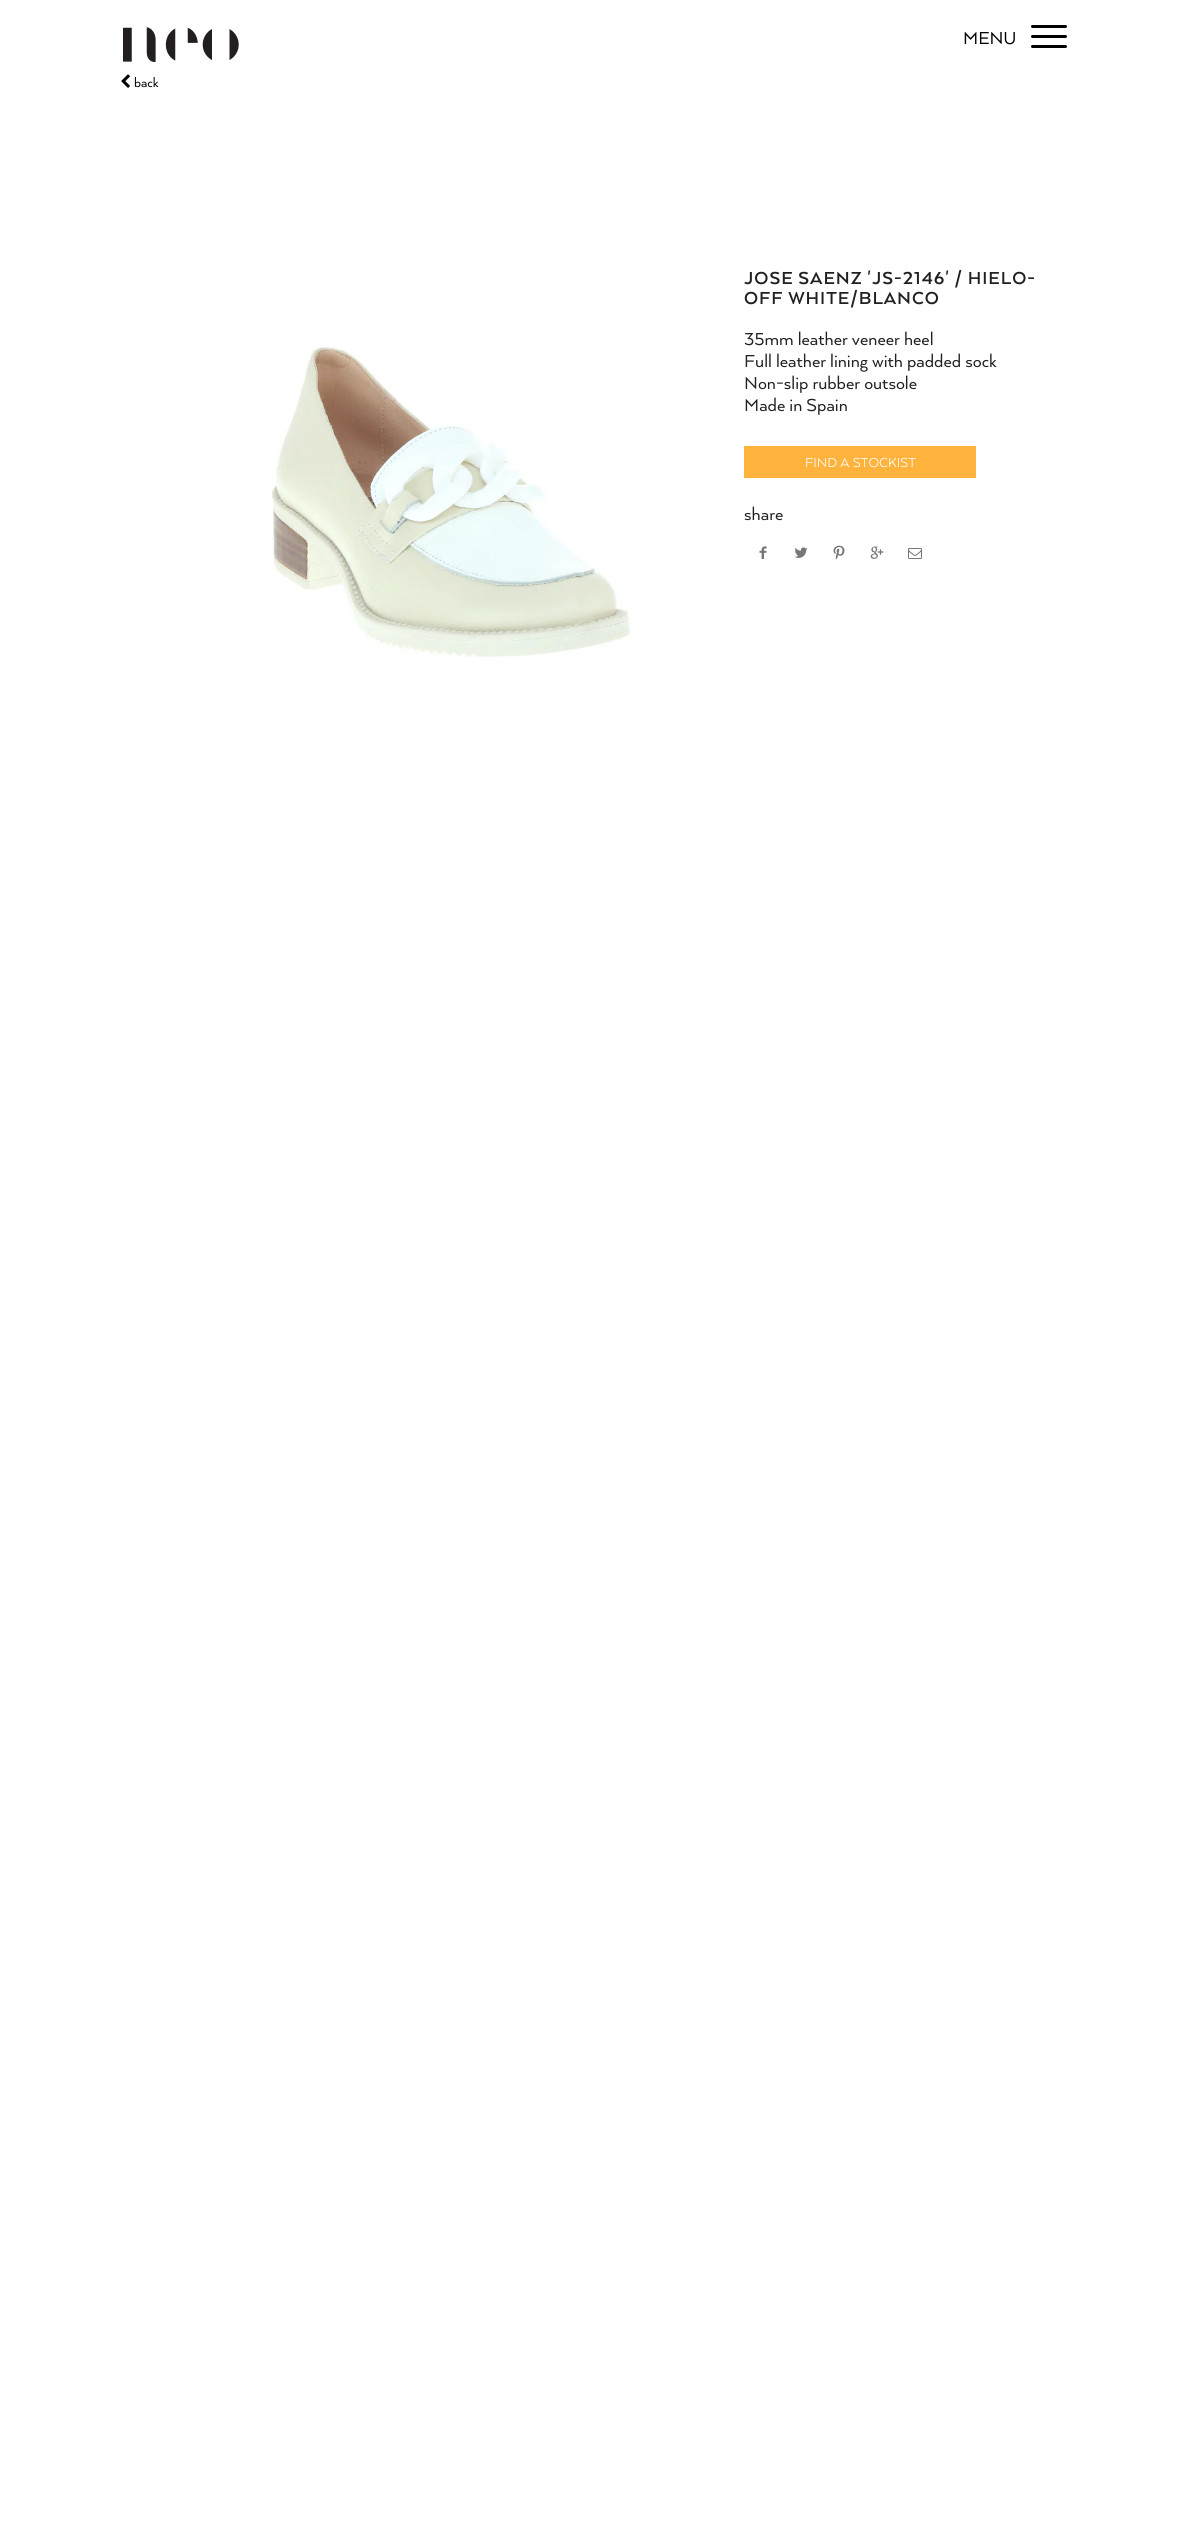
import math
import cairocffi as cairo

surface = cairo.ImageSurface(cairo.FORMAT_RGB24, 1187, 2537)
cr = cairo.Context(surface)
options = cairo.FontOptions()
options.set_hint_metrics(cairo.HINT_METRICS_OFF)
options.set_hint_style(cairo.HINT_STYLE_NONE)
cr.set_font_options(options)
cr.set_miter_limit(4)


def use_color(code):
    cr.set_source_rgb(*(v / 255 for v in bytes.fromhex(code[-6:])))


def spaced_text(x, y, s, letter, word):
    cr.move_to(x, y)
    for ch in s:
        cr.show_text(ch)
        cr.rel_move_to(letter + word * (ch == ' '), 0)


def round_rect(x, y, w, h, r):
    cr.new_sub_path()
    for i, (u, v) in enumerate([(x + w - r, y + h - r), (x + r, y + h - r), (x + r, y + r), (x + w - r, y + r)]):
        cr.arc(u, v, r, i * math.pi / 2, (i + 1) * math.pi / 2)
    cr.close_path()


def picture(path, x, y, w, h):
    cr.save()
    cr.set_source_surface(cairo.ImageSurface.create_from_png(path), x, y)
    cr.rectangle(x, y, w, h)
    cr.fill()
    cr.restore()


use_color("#ffffff")
cr.paint()
picture("img1.png", 123, 27, 116, 35)
cr.select_font_face("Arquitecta")
cr.set_font_size(20)
use_color("#000000")
cr.move_to(963, 44)
cr.show_text("MENU")
round_rect(1031, 25, 36, 3, 1.5)
cr.fill()
round_rect(1031, 35, 36, 3, 1.5)
cr.fill()
round_rect(1031, 45, 36, 3, 1.5)
cr.fill()
picture("img2.png", 121, 74, 9, 14)
cr.set_font_size(15)
cr.move_to(134, 87)
cr.show_text("back")
picture("img3.png", 272, 347, 358, 311)
cr.select_font_face("Arquitecta", cairo.FONT_SLANT_NORMAL, cairo.FONT_WEIGHT_BOLD)
cr.set_font_size(20)
use_color("#212121")
spaced_text(744, 284, "JOSE SAENZ 'JS-2146' / HIELO-", 1, 0)
spaced_text(744, 304, "OFF WHITE/BLANCO", 1, 0)
cr.select_font_face("Arquitecta")
cr.move_to(744, 345)
cr.show_text("35mm leather veneer heel")
cr.move_to(744, 367)
cr.show_text("Full leather lining with padded sock")
cr.move_to(744, 389)
cr.show_text("Non-slip rubber outsole")
cr.move_to(744, 411)
cr.show_text("Made in Spain")
use_color("#ffb33d")
cr.rectangle(744, 446, 232, 32)
cr.fill()
cr.select_font_face("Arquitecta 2")
cr.set_font_size(15)
use_color("#ffffff")
cr.move_to(805, 467)
cr.show_text("FIND A STOCKIST")
cr.select_font_face("Arquitecta")
cr.set_font_size(20)
use_color("#212121")
cr.move_to(744, 520)
cr.show_text("share")
picture("img4.png", 759, 546, 8, 13)
picture("img5.png", 794, 547, 14, 11)
picture("img6.png", 833, 545, 12, 15)
picture("img7.png", 870, 546, 14, 13)
picture("img8.png", 908, 548, 14, 11)
surface.write_to_png("result.png")
